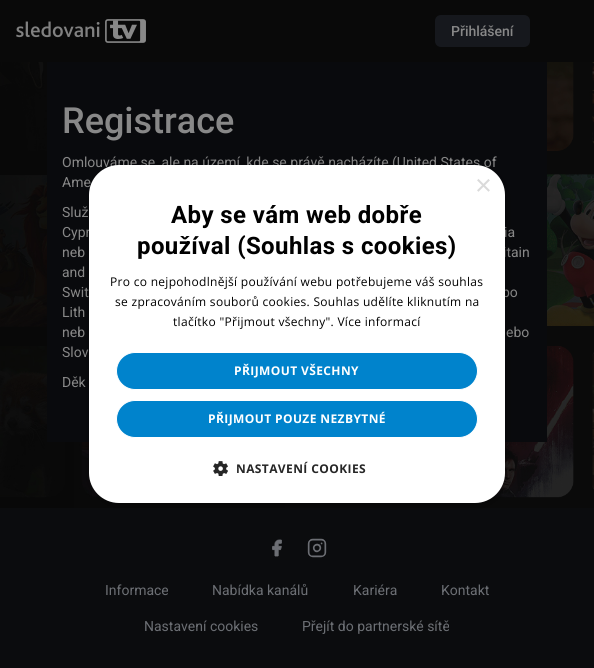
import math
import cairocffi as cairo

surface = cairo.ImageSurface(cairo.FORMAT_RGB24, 594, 668)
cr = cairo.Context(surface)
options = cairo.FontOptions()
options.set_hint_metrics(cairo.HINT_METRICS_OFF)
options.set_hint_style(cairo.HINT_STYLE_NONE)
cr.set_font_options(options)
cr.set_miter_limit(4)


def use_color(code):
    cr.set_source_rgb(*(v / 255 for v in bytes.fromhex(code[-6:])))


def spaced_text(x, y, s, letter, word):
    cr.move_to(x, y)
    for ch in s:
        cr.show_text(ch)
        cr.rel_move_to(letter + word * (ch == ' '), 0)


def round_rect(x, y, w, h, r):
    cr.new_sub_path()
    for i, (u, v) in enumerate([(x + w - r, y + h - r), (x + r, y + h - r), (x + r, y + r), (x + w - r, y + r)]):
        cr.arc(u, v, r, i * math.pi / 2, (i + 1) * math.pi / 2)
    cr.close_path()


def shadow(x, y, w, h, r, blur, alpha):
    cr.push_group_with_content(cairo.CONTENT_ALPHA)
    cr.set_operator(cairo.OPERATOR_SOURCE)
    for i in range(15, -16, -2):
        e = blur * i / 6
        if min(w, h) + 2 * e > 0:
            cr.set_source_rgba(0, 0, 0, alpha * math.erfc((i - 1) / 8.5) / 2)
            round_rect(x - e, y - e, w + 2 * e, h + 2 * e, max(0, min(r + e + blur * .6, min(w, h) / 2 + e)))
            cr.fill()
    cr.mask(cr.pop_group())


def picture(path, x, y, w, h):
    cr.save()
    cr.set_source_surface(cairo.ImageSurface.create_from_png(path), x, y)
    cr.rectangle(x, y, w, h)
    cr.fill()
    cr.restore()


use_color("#ffffff")
cr.paint()
picture("img1.png", 0, 62, 594, 446)
use_color("#090909")
cr.rectangle(0, 0, 594, 62)
cr.fill()
picture("img2.png", 16, 19, 130, 24)
use_color("#16181d")
round_rect(435, 15, 95, 32, 6)
cr.fill()
cr.select_font_face("Roboto Medium")
cr.set_font_size(14)
use_color("#888888")
cr.move_to(451, 36)
cr.show_text("Přihlášení")
use_color("#090a0d")
cr.rectangle(47, 62, 500, 380)
cr.fill()
cr.set_font_size(36)
use_color("#888888")
cr.move_to(62, 133)
cr.show_text("Registrace")
cr.select_font_face("Roboto")
cr.set_font_size(14)
cr.move_to(62, 167)
cr.show_text("Omlouváme se, ale na území, kde se právě nacházíte (United States of")
cr.move_to(62, 187)
cr.show_text("Ame")
cr.move_to(62, 217)
cr.show_text("Služ")
cr.move_to(62, 237)
cr.show_text("Cypr")
cr.move_to(504, 237)
cr.show_text("ia")
cr.move_to(62, 257)
cr.show_text("neb")
cr.move_to(503, 257)
cr.show_text("itain")
cr.move_to(62, 277)
cr.show_text("and")
cr.move_to(62, 297)
cr.show_text("Swit")
cr.move_to(502, 297)
cr.show_text("bo")
cr.move_to(62, 317)
cr.show_text("Lith")
cr.move_to(62, 337)
cr.show_text("neb")
cr.move_to(506, 337)
cr.show_text("ebo")
cr.move_to(62, 357)
cr.show_text("Slov")
cr.move_to(62, 387)
cr.show_text("Děk")
use_color("#0b0c0e")
cr.rectangle(0, 508, 594, 160)
cr.fill()
use_color("#000000")
shadow(90, 167, 416, 338, 30, 4, 0.35)
use_color("#ffffff")
round_rect(89, 165, 416, 338, 30)
cr.fill()
cr.select_font_face("Liberation Sans")
cr.set_font_size(29)
use_color("#dadada")
cr.move_to(475, 195)
cr.show_text("×")
cr.select_font_face("Roboto", cairo.FONT_SLANT_NORMAL, cairo.FONT_WEIGHT_BOLD)
cr.set_font_size(24)
use_color("#000000")
spaced_text(171, 223, "Aby se vám web dobře", 0.4, 0)
spaced_text(137, 254, "používal (Souhlas s cookies)", 0.4, 0)
cr.select_font_face("Open Sans")
cr.set_font_size(12)
spaced_text(110, 286, "Pro co nejpohodlnější používání webu potřebujeme váš souhlas", 0.3, 0)
spaced_text(115, 306, "se zpracováním souborů cookies. Souhlas udělíte kliknutím na", 0.3, 0)
spaced_text(173, 326, "tlačítko \"Přijmout všechny\". Více informací", 0.3, 0)
use_color("#0083cc")
round_rect(116.5, 352.5, 361, 37, 18.5)
cr.fill_preserve()
use_color("#ffffff")
cr.set_line_width(1)
cr.stroke()
cr.select_font_face("Open Sans", cairo.FONT_SLANT_NORMAL, cairo.FONT_WEIGHT_BOLD)
spaced_text(234, 375, "PŘIJMOUT VŠECHNY", 0.4, 0)
use_color("#0083cc")
round_rect(116.5, 400.5, 361, 37, 18.5)
cr.fill_preserve()
use_color("#ffffff")
cr.stroke()
spaced_text(208, 423, "PŘIJMOUT POUZE NEZBYTNÉ", 0.4, 0)
picture("img3.png", 213, 461, 15, 15)
use_color("#262626")
spaced_text(236, 473, "NASTAVENÍ COOKIES", 0.4, 0)
picture("img4.png", 272, 539, 10, 18)
picture("img5.png", 307, 538, 20, 20)
cr.select_font_face("Roboto")
cr.set_font_size(14)
use_color("#6c6f74")
cr.move_to(105, 595)
cr.show_text("Informace")
cr.move_to(212, 595)
cr.show_text("Nabídka kanálů")
cr.move_to(353, 595)
cr.show_text("Kariéra")
cr.move_to(441, 595)
cr.show_text("Kontakt")
cr.move_to(144, 631)
cr.show_text("Nastavení cookies")
cr.move_to(302, 631)
cr.show_text("Přejít do partnerské sítě")
surface.write_to_png("result.png")
